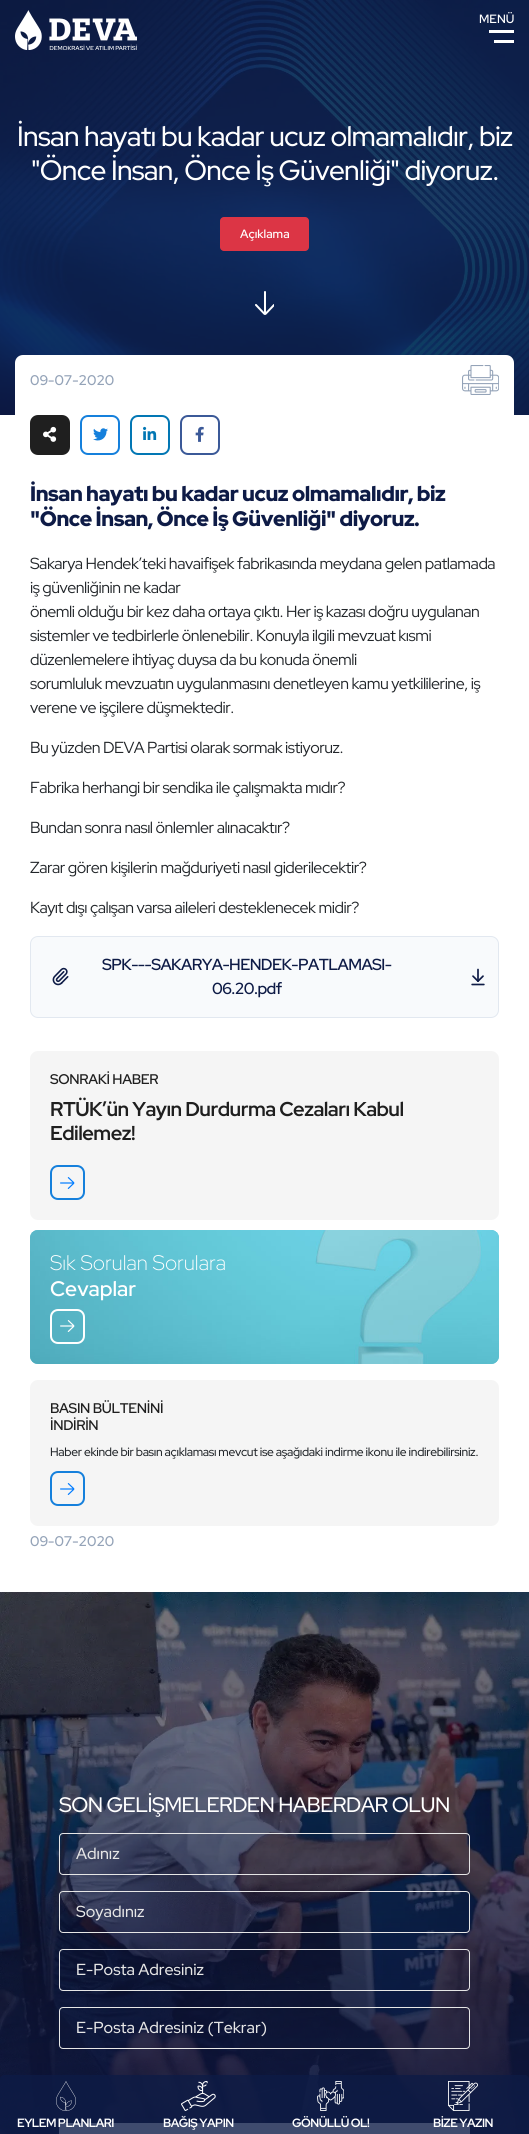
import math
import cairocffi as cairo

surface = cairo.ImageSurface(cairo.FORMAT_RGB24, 529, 2134)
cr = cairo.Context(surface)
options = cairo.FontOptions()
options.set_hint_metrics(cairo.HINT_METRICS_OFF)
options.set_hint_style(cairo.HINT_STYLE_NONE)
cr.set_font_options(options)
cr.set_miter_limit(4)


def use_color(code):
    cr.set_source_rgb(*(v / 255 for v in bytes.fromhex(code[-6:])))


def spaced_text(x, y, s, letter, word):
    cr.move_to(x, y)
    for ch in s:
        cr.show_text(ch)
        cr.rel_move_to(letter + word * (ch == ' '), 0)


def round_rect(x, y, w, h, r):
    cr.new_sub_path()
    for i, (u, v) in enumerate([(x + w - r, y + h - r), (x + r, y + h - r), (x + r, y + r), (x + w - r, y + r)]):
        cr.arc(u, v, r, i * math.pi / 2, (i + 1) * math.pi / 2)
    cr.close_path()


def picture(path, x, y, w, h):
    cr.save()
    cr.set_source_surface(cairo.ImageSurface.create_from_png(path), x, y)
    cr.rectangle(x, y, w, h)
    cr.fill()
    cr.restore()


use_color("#ffffff")
cr.paint()
use_color("#0e1b46")
cr.rectangle(0, 0, 529, 415)
cr.fill()
picture("img6.png", 0, 0, 529, 415)
picture("img1.png", 15, 10, 122, 40)
cr.select_font_face("Red Hat Display SemiBold")
cr.set_font_size(12)
use_color("#ffffff")
cr.move_to(479, 23)
cr.show_text("MENÜ")
cr.rectangle(489, 30, 25, 3)
cr.fill()
cr.rectangle(494, 40, 20, 3)
cr.fill()
picture("img18.png", 0, 1592, 529, 542)
use_color("#f0f8ff")
round_rect(59, 2123, 411, 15, 4)
cr.fill()
cr.set_source_rgba(0.055, 0.106, 0.275, 0.78)
cr.new_path()
cr.move_to(4, 2075)
cr.line_to(525, 2075)
cr.curve_to(527, 2075, 529, 2077, 529, 2079)
cr.line_to(529, 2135)
cr.line_to(0, 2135)
cr.line_to(0, 2079)
cr.curve_to(0, 2077, 2, 2075, 4, 2075)
cr.close_path()
cr.fill()
picture("img2.png", 56, 2081, 20, 30)
cr.select_font_face("Red Hat Display", cairo.FONT_SLANT_NORMAL, cairo.FONT_WEIGHT_BOLD)
use_color("#ffffff")
spaced_text(17, 2127, "EYLEM PLANLARI", -0.5, 0)
picture("img3.png", 181, 2081, 35, 30)
spaced_text(163, 2127, "BAĞIŞ YAPIN", -0.5, 0)
picture("img4.png", 317, 2081, 27, 30)
spaced_text(292, 2127, "GÖNÜLLÜ OL!", -0.5, 0)
picture("img5.png", 448, 2081, 30, 30)
spaced_text(433, 2127, "BİZE YAZIN", -0.5, 0)
cr.select_font_face("Red Hat Display Medium")
cr.set_font_size(28)
spaced_text(17, 146, "İnsan hayatı bu kadar ucuz olmamalıdır, biz", -0.7, 0)
spaced_text(31, 180, "\"Önce İnsan, Önce İş Güvenliği\" diyoruz.", -0.7, 0)
use_color("#dc3545")
round_rect(220, 217, 89, 34, 4)
cr.fill()
cr.select_font_face("Red Hat Display SemiBold")
cr.set_font_size(12)
use_color("#ffffff")
cr.move_to(240, 238)
cr.show_text("Açıklama")
picture("img7.png", 255, 291, 19, 24)
cr.new_path()
cr.move_to(23, 355)
cr.line_to(506, 355)
cr.curve_to(510.5, 355, 514, 358.5, 514, 363)
cr.line_to(514, 1552)
cr.line_to(15, 1552)
cr.line_to(15, 363)
cr.curve_to(15, 358.5, 18.5, 355, 23, 355)
cr.close_path()
cr.fill()
cr.set_font_size(14)
use_color("#94a3b8")
cr.move_to(30, 385)
cr.show_text("09-07-2020")
picture("img8.png", 462, 365, 37, 30)
use_color("#1f1f1f")
round_rect(31, 416, 38, 38, 7)
cr.fill_preserve()
cr.stroke()
picture("img9.png", 43, 426, 14, 16)
round_rect(81, 416, 38, 38, 7)
use_color("#1580dc")
cr.stroke()
picture("img10.png", 93, 428, 15, 13)
round_rect(131, 416, 38, 38, 7)
use_color("#0277b4")
cr.stroke()
picture("img11.png", 143, 426, 14, 14)
round_rect(181, 416, 38, 38, 7)
use_color("#3b5998")
cr.stroke()
picture("img12.png", 195, 426, 9, 16)
cr.select_font_face("Red Hat Display Black")
cr.set_font_size(21)
use_color("#0e1b46")
spaced_text(30, 501, "İnsan hayatı bu kadar ucuz olmamalıdır, biz", -0.4, 0)
spaced_text(30, 526, "\"Önce İnsan, Önce İş Güvenliği\" diyoruz.", -0.4, 0)
cr.select_font_face("Red Hat Display")
cr.set_font_size(16)
use_color("#212529")
spaced_text(30, 569, "Sakarya Hendek’teki havaifişek fabrikasında meydana gelen patlamada", -0.48, 0)
spaced_text(30, 593, "iş güvenliğinin ne kadar", -0.48, 0)
spaced_text(30, 617, "önemli olduğu bir kez daha ortaya çıktı. Her iş kazası doğru uygulanan", -0.48, 0)
spaced_text(30, 641, "sistemler ve tedbirlerle önlenebilir. Konuyla ilgili mevzuat kısmi", -0.48, 0)
spaced_text(30, 665, "düzenlemelere ihtiyaç duysa da bu konuda önemli", -0.48, 0)
spaced_text(30, 689, "sorumluluk mevzuatın uygulanmasını denetleyen kamu yetkililerine, iş", -0.48, 0)
spaced_text(30, 713, "verene ve işçilere düşmektedir.", -0.48, 0)
spaced_text(30, 753, "Bu yüzden DEVA Partisi olarak sormak istiyoruz.", -0.48, 0)
spaced_text(30, 793, "Fabrika herhangi bir sendika ile çalışmakta mıdır?", -0.48, 0)
spaced_text(30, 833, "Bundan sonra nasıl önlemler alınacaktır?", -0.48, 0)
spaced_text(30, 873, "Zarar gören kişilerin mağduriyeti nasıl giderilecektir?", -0.48, 0)
spaced_text(30, 913, "Kayıt dışı çalışan varsa aileleri desteklenecek midir?", -0.48, 0)
use_color("#f8fafc")
round_rect(30.5, 936.5, 468, 81, 7.5)
cr.fill_preserve()
use_color("#e2e8f0")
cr.set_line_width(1)
cr.stroke()
cr.select_font_face("Red Hat Display SemiBold")
use_color("#0e1b46")
spaced_text(102, 970, "SPK---SAKARYA-HENDEK-PATLAMASI-", -0.55, 0)
picture("img13.png", 52, 967, 17, 19)
spaced_text(212, 994, "06.20.pdf", -0.55, 0)
picture("img14.png", 471, 968, 14, 18)
use_color("#f5f5f5")
round_rect(30, 1051, 469, 169, 8)
cr.fill()
cr.set_font_size(14)
use_color("#1f1f1f")
spaced_text(50, 1084, "SONRAKİ HABER", -0.3, 0)
cr.select_font_face("Red Hat Display", cairo.FONT_SLANT_NORMAL, cairo.FONT_WEIGHT_BOLD)
cr.set_font_size(20)
spaced_text(50, 1116, "RTÜK’ün Yayın Durdurma Cezaları Kabul", -0.5, 0)
spaced_text(50, 1140, "Edilemez!", -0.5, 0)
round_rect(51, 1166, 33, 33, 7)
use_color("#1580dc")
cr.set_line_width(2)
cr.stroke()
picture("img15.png", 60, 1177, 15, 12)
use_color("#60c1d2")
round_rect(30, 1230, 469, 134, 8)
cr.fill()
picture("img16.png", 30, 1230, 469, 134)
cr.select_font_face("Red Hat Display Light")
cr.set_font_size(21)
use_color("#ffffff")
cr.move_to(50, 1270)
cr.show_text("Sık Sorulan Sorulara")
cr.select_font_face("Red Hat Display SemiBold")
cr.move_to(50, 1296)
cr.show_text("Cevaplar")
round_rect(51, 1310, 33, 33, 7)
cr.stroke()
picture("img17.png", 60, 1320, 15, 12)
use_color("#f5f5f5")
round_rect(30, 1380, 469, 146, 8)
cr.fill()
cr.set_font_size(14)
use_color("#1f1f1f")
spaced_text(50, 1413, "BASIN BÜLTENİNİ", -0.3, 0)
spaced_text(50, 1430, "İNDİRİN", -0.3, 0)
cr.select_font_face("Red Hat Display Medium")
cr.set_font_size(12)
use_color("#212529")
spaced_text(50, 1456, "Haber ekinde bir basın açıklaması mevcut ise aşağıdaki indirme ikonu ile indirebilirsiniz.", -0.3, 0)
round_rect(51, 1472, 33, 33, 7)
use_color("#1580dc")
cr.stroke()
picture("img15.png", 60, 1483, 15, 12)
cr.select_font_face("Red Hat Display SemiBold")
cr.set_font_size(14)
use_color("#94a3b8")
cr.move_to(30, 1546)
cr.show_text("09-07-2020")
cr.select_font_face("Red Hat Display Medium")
cr.set_font_size(21)
use_color("#ffffff")
spaced_text(59, 1812, "SON GELİŞMELERDEN HABERDAR OLUN", -0.5, 0)
round_rect(59.5, 1833.5, 410, 41, 3.5)
use_color("#e6e6e6")
cr.set_line_width(1)
cr.stroke()
cr.set_font_size(16)
cr.move_to(76, 1859)
cr.show_text("Adınız")
round_rect(59.5, 1891.5, 410, 41, 3.5)
cr.stroke()
cr.move_to(76, 1917)
cr.show_text("Soyadınız")
round_rect(59.5, 1949.5, 410, 41, 3.5)
cr.stroke()
cr.move_to(76, 1975)
cr.show_text("E-Posta Adresiniz")
round_rect(59.5, 2007.5, 410, 41, 3.5)
cr.stroke()
cr.move_to(76, 2033)
cr.show_text("E-Posta Adresiniz (Tekrar)")
surface.write_to_png("result.png")
